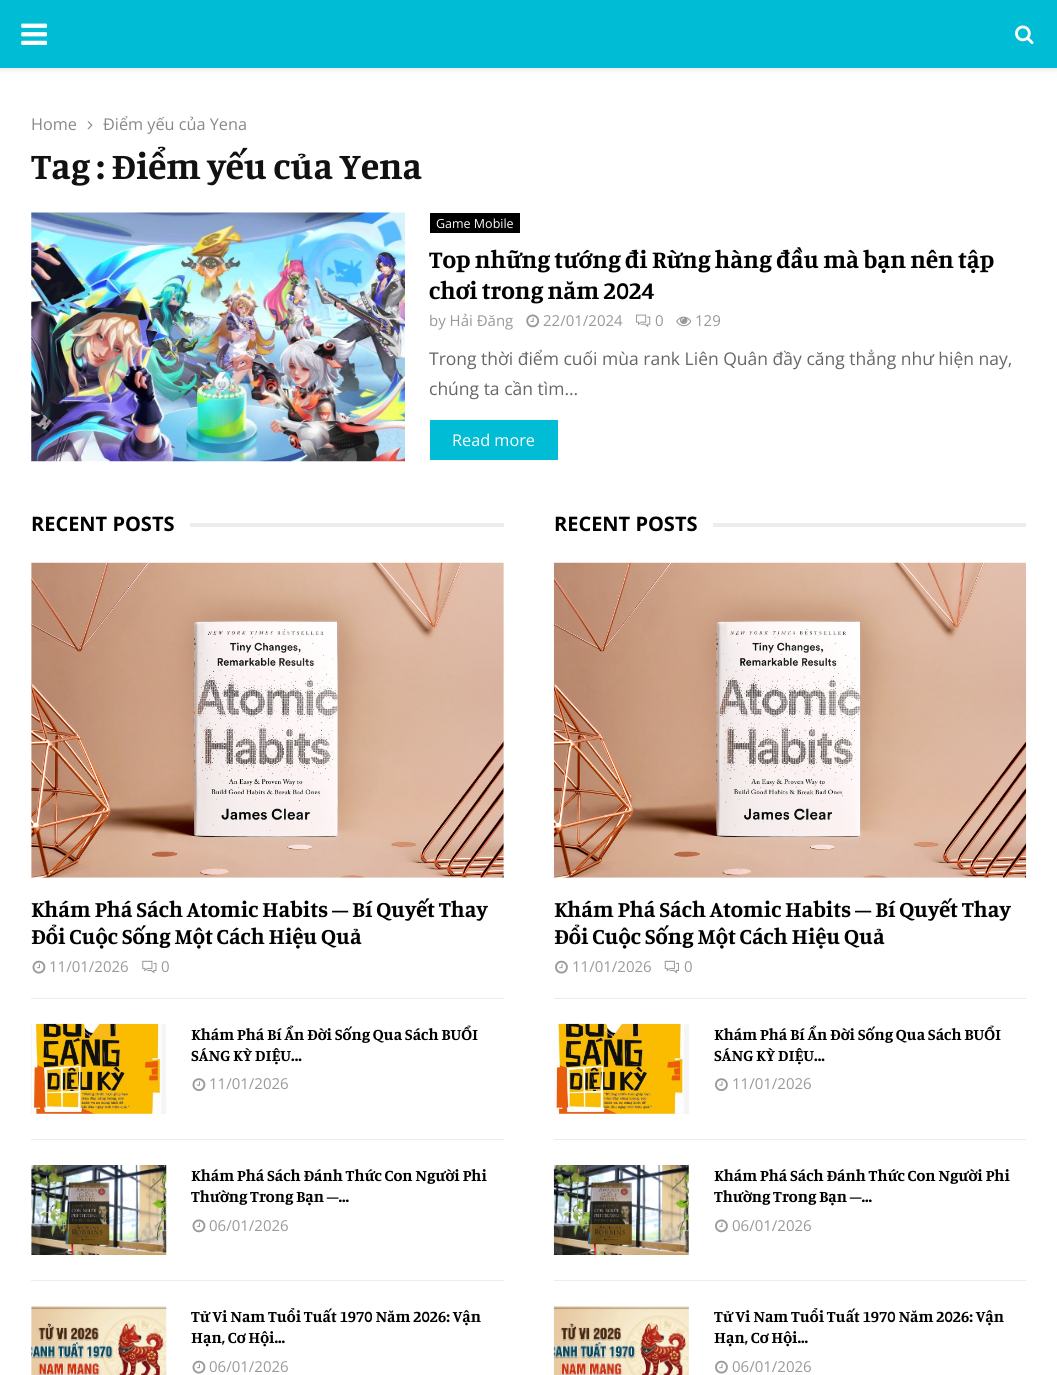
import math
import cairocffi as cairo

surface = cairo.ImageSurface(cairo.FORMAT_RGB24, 1057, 1375)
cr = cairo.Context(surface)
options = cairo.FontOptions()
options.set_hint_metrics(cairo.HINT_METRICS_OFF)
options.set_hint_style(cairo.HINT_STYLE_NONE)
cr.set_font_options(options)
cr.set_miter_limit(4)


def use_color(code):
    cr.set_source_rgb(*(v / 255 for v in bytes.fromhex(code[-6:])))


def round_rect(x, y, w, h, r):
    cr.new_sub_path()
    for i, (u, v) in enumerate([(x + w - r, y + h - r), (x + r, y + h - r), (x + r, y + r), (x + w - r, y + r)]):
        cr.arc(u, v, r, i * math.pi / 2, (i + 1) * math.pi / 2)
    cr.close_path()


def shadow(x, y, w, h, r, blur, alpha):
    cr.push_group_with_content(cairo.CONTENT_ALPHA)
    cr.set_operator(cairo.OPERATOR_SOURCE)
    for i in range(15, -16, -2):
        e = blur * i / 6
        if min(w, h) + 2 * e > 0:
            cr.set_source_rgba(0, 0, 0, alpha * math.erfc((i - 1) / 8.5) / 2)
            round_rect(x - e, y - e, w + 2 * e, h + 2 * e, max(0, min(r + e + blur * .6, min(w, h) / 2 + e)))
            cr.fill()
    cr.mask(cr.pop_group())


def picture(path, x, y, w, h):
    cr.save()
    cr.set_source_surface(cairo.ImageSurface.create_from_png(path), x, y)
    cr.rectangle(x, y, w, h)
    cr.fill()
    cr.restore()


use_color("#ffffff")
cr.paint()
use_color("#bebebe")
shadow(0, 1, 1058, 68, 0, 3, 0.46)
use_color("#00bcd4")
cr.rectangle(0, 0, 1057, 68)
cr.fill()
picture("img1.png", 21, 23, 26, 22)
picture("img2.png", 1015, 25, 19, 20)
cr.select_font_face("Open Sans")
cr.set_font_size(16.25)
use_color("#888888")
cr.move_to(31, 130)
cr.show_text("Home")
picture("img3.png", 87, 121, 6, 9)
cr.move_to(103, 130)
cr.show_text("Điểm yếu của Yena")
cr.select_font_face("Manuale", cairo.FONT_SLANT_NORMAL, cairo.FONT_WEIGHT_BOLD)
cr.set_font_size(37.5)
use_color("#111111")
cr.move_to(31, 179)
cr.show_text("Tag : Điểm yếu của Yena")
picture("img4.png", 31, 212, 374, 250)
use_color("#000000")
cr.rectangle(430, 213, 90, 20)
cr.fill()
cr.select_font_face("Open Sans")
cr.set_font_size(12.5)
use_color("#ffffff")
cr.move_to(436, 228)
cr.show_text("Game Mobile")
cr.select_font_face("Manuale", cairo.FONT_SLANT_NORMAL, cairo.FONT_WEIGHT_BOLD)
cr.set_font_size(25)
use_color("#000000")
cr.move_to(429, 268)
cr.show_text("Top những tướng đi Rừng hàng đầu mà bạn nên tập")
cr.move_to(429, 299)
cr.show_text("chơi trong năm 2024")
cr.select_font_face("Open Sans")
cr.set_font_size(15)
use_color("#999999")
cr.move_to(429, 326)
cr.show_text("by Hải Đăng")
picture("img5.png", 526, 314, 14, 14)
cr.move_to(543, 326)
cr.show_text("22/01/2024")
picture("img6.png", 636, 314, 15, 14)
cr.move_to(655, 326)
cr.show_text("0")
picture("img7.png", 676, 316, 16, 11)
cr.move_to(695, 326)
cr.show_text("129")
cr.set_font_size(17.5)
use_color("#666666")
cr.move_to(429, 365)
cr.show_text("Trong thời điểm cuối mùa rank Liên Quân đầy căng thẳng như hiện nay,")
cr.move_to(429, 395)
cr.show_text("chúng ta cần tìm...")
use_color("#00bcd4")
cr.rectangle(430, 420, 128, 40)
cr.fill()
cr.set_font_size(16.25)
use_color("#ffffff")
cr.move_to(452, 446)
cr.show_text("Read more")
cr.select_font_face("Open Sans", cairo.FONT_SLANT_NORMAL, cairo.FONT_WEIGHT_BOLD)
cr.set_font_size(20)
use_color("#000000")
cr.move_to(31, 531)
cr.show_text("RECENT POSTS")
use_color("#ececec")
cr.rectangle(190, 523, 314, 4)
cr.fill()
cr.rectangle(31, 998, 473, 1)
cr.fill()
use_color("#f5f5f5")
cr.rectangle(31, 563, 473, 315)
cr.fill()
picture("img8.png", 31, 562, 473, 316)
cr.select_font_face("Manuale", cairo.FONT_SLANT_NORMAL, cairo.FONT_WEIGHT_BOLD)
cr.set_font_size(22.5)
use_color("#000000")
cr.move_to(31, 917)
cr.show_text("Khám Phá Sách Atomic Habits – Bí Quyết Thay")
cr.move_to(31, 944)
cr.show_text("Đổi Cuộc Sống Một Cách Hiệu Quả")
picture("img9.png", 32, 960, 14, 14)
cr.select_font_face("Open Sans")
cr.set_font_size(15)
use_color("#999999")
cr.move_to(49, 972)
cr.show_text("11/01/2026")
picture("img10.png", 142, 960, 15, 14)
cr.move_to(161, 972)
cr.show_text("0")
use_color("#ececec")
cr.rectangle(31, 1139, 473, 1)
cr.fill()
use_color("#f5f5f5")
cr.rectangle(31, 1024, 135, 90)
cr.fill()
picture("img11.png", 32, 1023, 130, 91)
cr.select_font_face("Manuale", cairo.FONT_SLANT_NORMAL, cairo.FONT_WEIGHT_BOLD)
cr.set_font_size(16.25)
use_color("#000000")
cr.move_to(191, 1040)
cr.show_text("Khám Phá Bí Ẩn Đời Sống Qua Sách BUỔI")
cr.move_to(191, 1061)
cr.show_text("SÁNG KỲ DIỆU...")
picture("img12.png", 192, 1078, 14, 13)
cr.select_font_face("Open Sans")
cr.set_font_size(15)
use_color("#999999")
cr.move_to(209, 1089)
cr.show_text("11/01/2026")
use_color("#ececec")
cr.rectangle(31, 1280, 473, 1)
cr.fill()
use_color("#f5f5f5")
cr.rectangle(31, 1165, 1, 90)
cr.fill()
picture("img13.png", 31, 1165, 136, 90)
cr.select_font_face("Manuale", cairo.FONT_SLANT_NORMAL, cairo.FONT_WEIGHT_BOLD)
cr.set_font_size(16.25)
use_color("#000000")
cr.move_to(191, 1181)
cr.show_text("Khám Phá Sách Đánh Thức Con Người Phi")
cr.move_to(191, 1202)
cr.show_text("Thường Trong Bạn –...")
picture("img14.png", 192, 1219, 14, 14)
cr.select_font_face("Open Sans")
cr.set_font_size(15)
use_color("#999999")
cr.move_to(209, 1231)
cr.show_text("06/01/2026")
use_color("#f5f5f5")
cr.rectangle(31, 1306, 135, 69)
cr.fill()
picture("img15.png", 31, 1306, 136, 69)
cr.select_font_face("Manuale", cairo.FONT_SLANT_NORMAL, cairo.FONT_WEIGHT_BOLD)
cr.set_font_size(16.25)
use_color("#000000")
cr.move_to(191, 1322)
cr.show_text("Tử Vi Nam Tuổi Tuất 1970 Năm 2026: Vận")
cr.move_to(191, 1343)
cr.show_text("Hạn, Cơ Hội...")
picture("img9.png", 192, 1360, 14, 14)
cr.select_font_face("Open Sans")
cr.set_font_size(15)
use_color("#999999")
cr.move_to(209, 1372)
cr.show_text("06/01/2026")
cr.select_font_face("Open Sans", cairo.FONT_SLANT_NORMAL, cairo.FONT_WEIGHT_BOLD)
cr.set_font_size(20)
use_color("#000000")
cr.move_to(554, 531)
cr.show_text("RECENT POSTS")
use_color("#ececec")
cr.rectangle(713, 523, 313, 4)
cr.fill()
cr.rectangle(554, 998, 472, 1)
cr.fill()
use_color("#f5f5f5")
cr.rectangle(554, 877, 472, 1)
cr.fill()
picture("img16.png", 553, 562, 474, 316)
cr.select_font_face("Manuale", cairo.FONT_SLANT_NORMAL, cairo.FONT_WEIGHT_BOLD)
cr.set_font_size(22.5)
use_color("#000000")
cr.move_to(554, 917)
cr.show_text("Khám Phá Sách Atomic Habits – Bí Quyết Thay")
cr.move_to(554, 944)
cr.show_text("Đổi Cuộc Sống Một Cách Hiệu Quả")
picture("img17.png", 555, 960, 13, 14)
cr.select_font_face("Open Sans")
cr.set_font_size(15)
use_color("#999999")
cr.move_to(572, 972)
cr.show_text("11/01/2026")
picture("img18.png", 664, 960, 15, 14)
cr.move_to(684, 972)
cr.show_text("0")
use_color("#ececec")
cr.rectangle(554, 1139, 472, 1)
cr.fill()
use_color("#f5f5f5")
cr.rectangle(554, 1024, 135, 90)
cr.fill()
picture("img19.png", 554, 1023, 130, 91)
cr.select_font_face("Manuale", cairo.FONT_SLANT_NORMAL, cairo.FONT_WEIGHT_BOLD)
cr.set_font_size(16.25)
use_color("#000000")
cr.move_to(714, 1040)
cr.show_text("Khám Phá Bí Ẩn Đời Sống Qua Sách BUỔI")
cr.move_to(714, 1061)
cr.show_text("SÁNG KỲ DIỆU...")
picture("img20.png", 715, 1078, 13, 13)
cr.select_font_face("Open Sans")
cr.set_font_size(15)
use_color("#999999")
cr.move_to(732, 1089)
cr.show_text("11/01/2026")
use_color("#ececec")
cr.rectangle(554, 1280, 472, 1)
cr.fill()
picture("img21.png", 553, 1165, 136, 90)
cr.select_font_face("Manuale", cairo.FONT_SLANT_NORMAL, cairo.FONT_WEIGHT_BOLD)
cr.set_font_size(16.25)
use_color("#000000")
cr.move_to(714, 1181)
cr.show_text("Khám Phá Sách Đánh Thức Con Người Phi")
cr.move_to(714, 1202)
cr.show_text("Thường Trong Bạn –...")
picture("img22.png", 715, 1219, 13, 14)
cr.select_font_face("Open Sans")
cr.set_font_size(15)
use_color("#999999")
cr.move_to(732, 1231)
cr.show_text("06/01/2026")
use_color("#f5f5f5")
cr.rectangle(554, 1306, 135, 69)
cr.fill()
picture("img23.png", 553, 1306, 136, 69)
cr.select_font_face("Manuale", cairo.FONT_SLANT_NORMAL, cairo.FONT_WEIGHT_BOLD)
cr.set_font_size(16.25)
use_color("#000000")
cr.move_to(714, 1322)
cr.show_text("Tử Vi Nam Tuổi Tuất 1970 Năm 2026: Vận")
cr.move_to(714, 1343)
cr.show_text("Hạn, Cơ Hội...")
picture("img17.png", 715, 1360, 13, 14)
cr.select_font_face("Open Sans")
cr.set_font_size(15)
use_color("#999999")
cr.move_to(732, 1372)
cr.show_text("06/01/2026")
surface.write_to_png("result.png")
